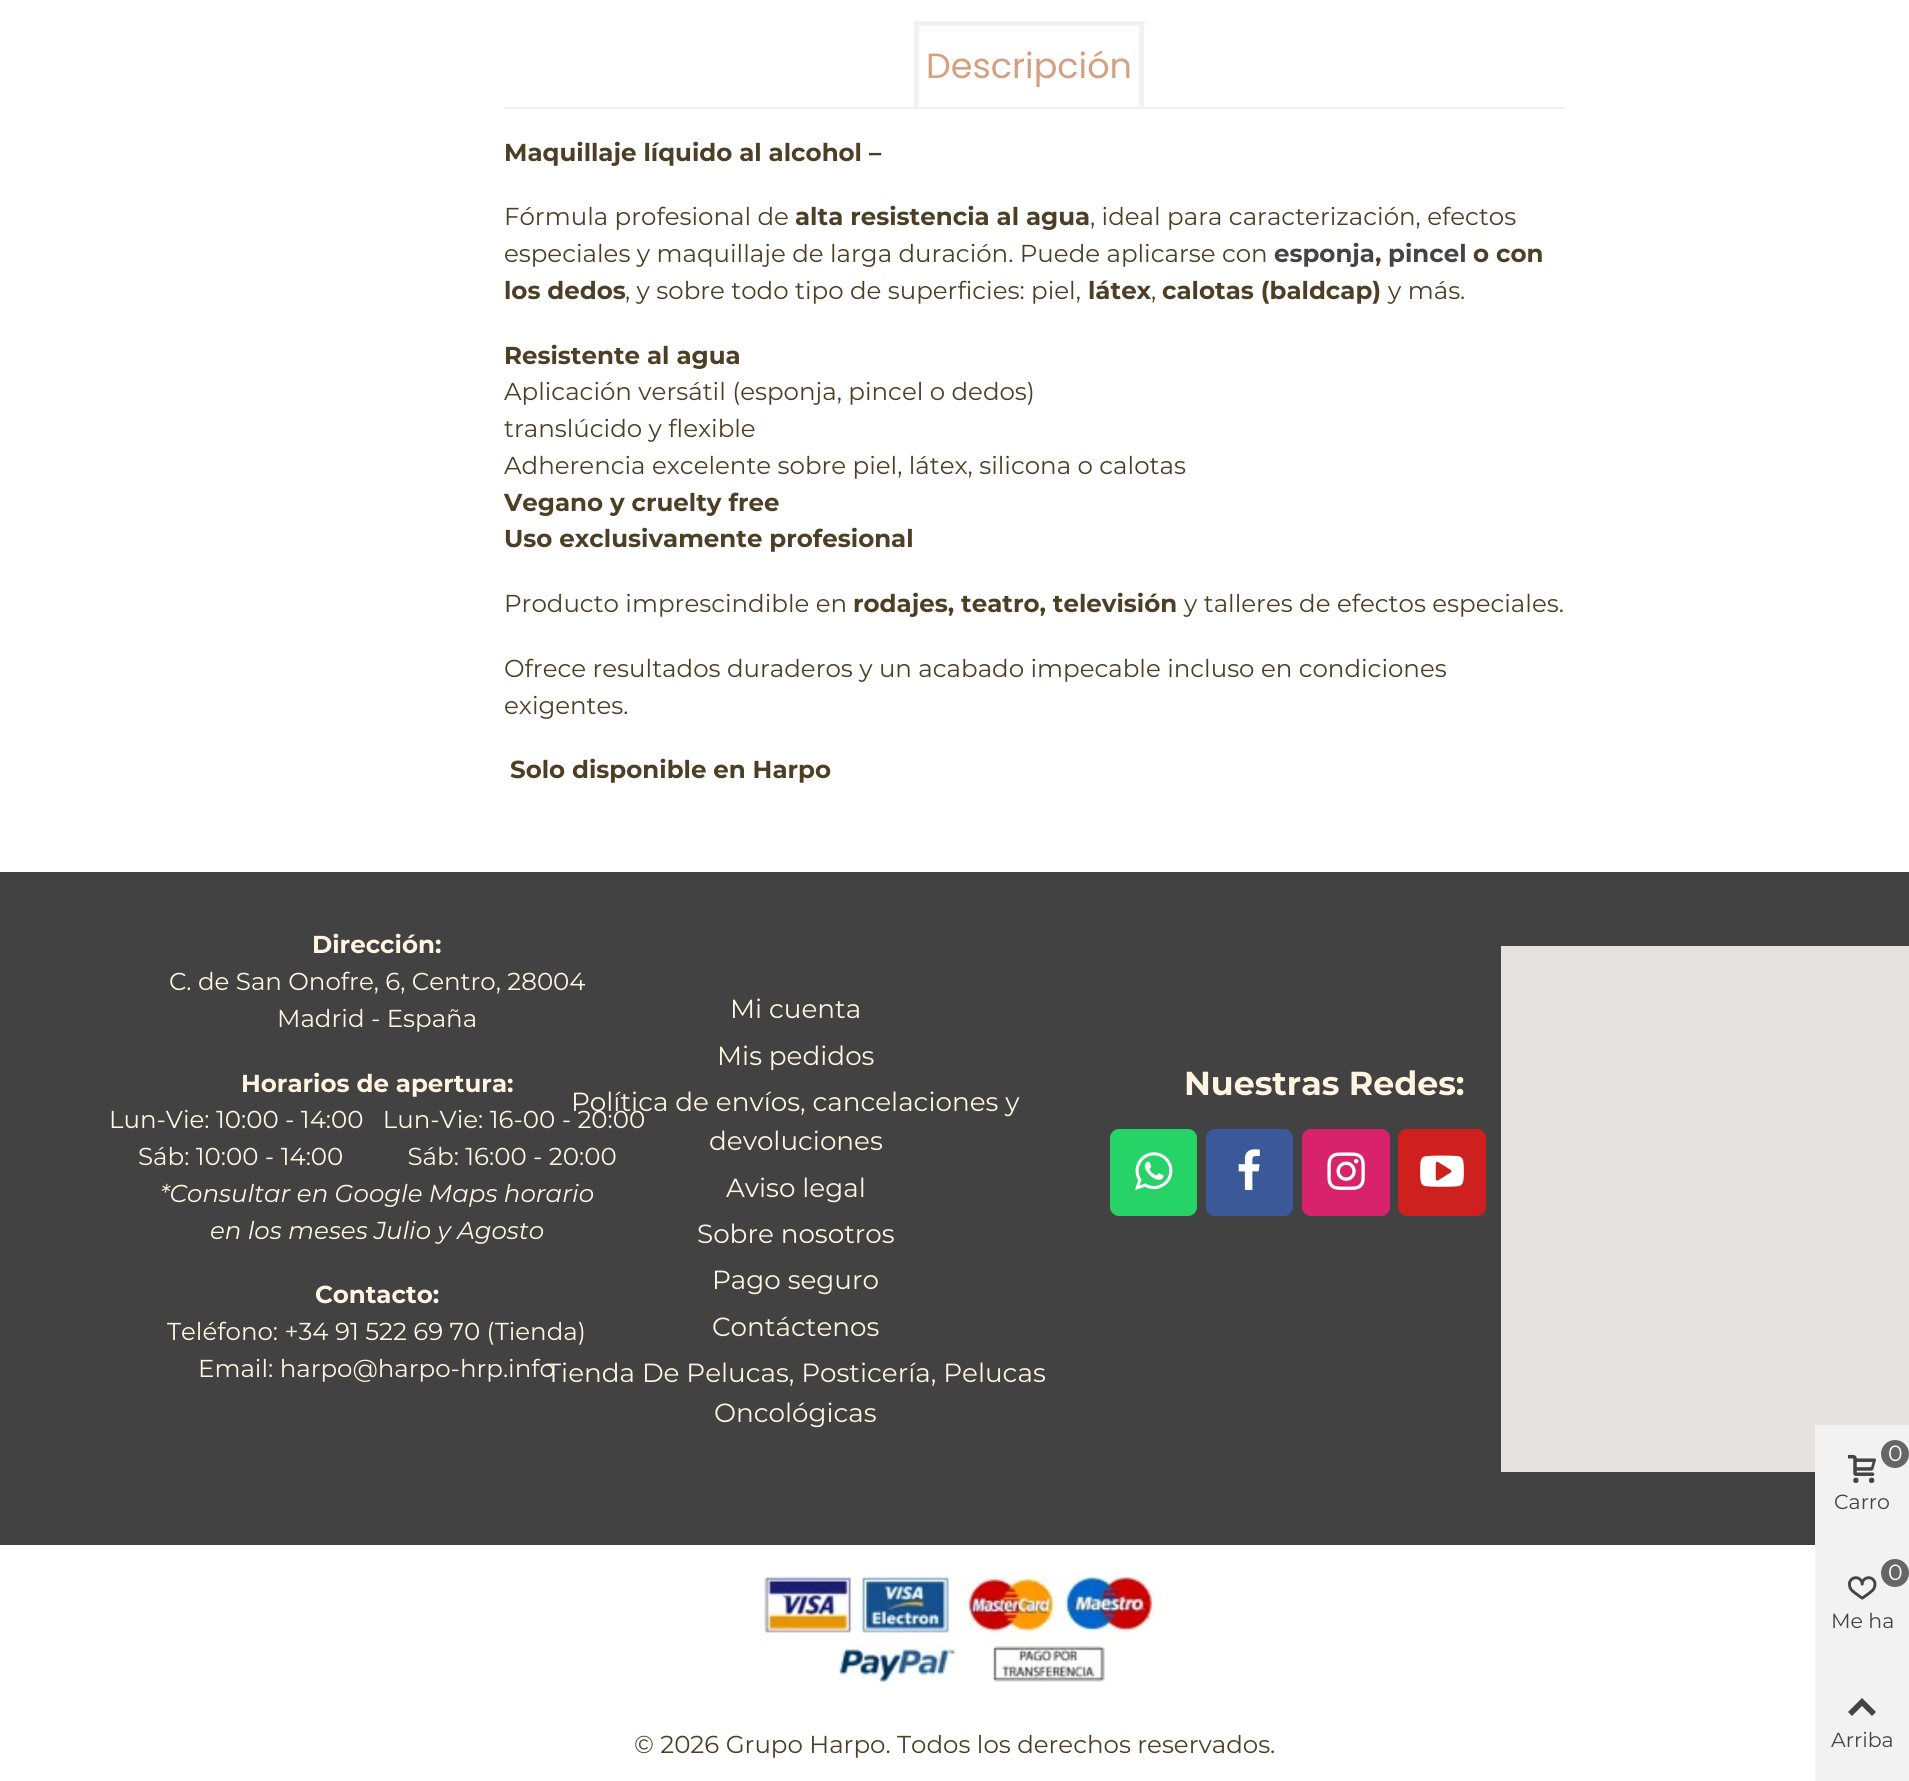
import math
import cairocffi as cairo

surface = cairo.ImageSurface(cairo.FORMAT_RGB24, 1909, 1781)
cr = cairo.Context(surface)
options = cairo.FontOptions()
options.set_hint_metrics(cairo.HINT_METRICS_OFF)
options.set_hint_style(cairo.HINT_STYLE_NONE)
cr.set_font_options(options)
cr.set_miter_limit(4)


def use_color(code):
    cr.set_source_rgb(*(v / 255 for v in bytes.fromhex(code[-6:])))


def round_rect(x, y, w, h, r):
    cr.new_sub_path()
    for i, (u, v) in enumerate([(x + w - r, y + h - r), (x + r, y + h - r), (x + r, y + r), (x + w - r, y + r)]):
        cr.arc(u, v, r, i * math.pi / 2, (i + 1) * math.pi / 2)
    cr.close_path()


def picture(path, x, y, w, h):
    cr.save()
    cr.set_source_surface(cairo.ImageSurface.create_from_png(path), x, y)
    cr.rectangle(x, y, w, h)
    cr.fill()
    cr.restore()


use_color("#ffffff")
cr.paint()
use_color("#f2f2f2")
cr.rectangle(504, 107, 1061, 2)
cr.fill()
cr.rectangle(914, 21, 231, 5)
cr.fill()
cr.save()
cr.rectangle(504, 21, 1061, 86)
cr.clip()
cr.new_path()
cr.move_to(1144, 21)
cr.line_to(1144, 108)
cr.line_to(1139, 107)
cr.line_to(1139, 26)
cr.close_path()
cr.fill()
cr.new_path()
cr.move_to(914, 108)
cr.line_to(914, 21)
cr.line_to(919, 26)
cr.line_to(919, 107)
cr.close_path()
cr.fill()
cr.restore()
cr.select_font_face("Poppins")
cr.set_font_size(35)
use_color("#d4a081")
cr.move_to(926, 78)
cr.show_text("Descripción")
cr.select_font_face("Montserrat", cairo.FONT_SLANT_NORMAL, cairo.FONT_WEIGHT_BOLD)
cr.set_font_size(24.5)
use_color("#4d3f25")
cr.move_to(504, 161)
cr.show_text("Maquillaje líquido al alcohol –")
cr.select_font_face("Montserrat")
cr.move_to(504, 225)
cr.show_text("Fórmula profesional de")
cr.select_font_face("Montserrat", cairo.FONT_SLANT_NORMAL, cairo.FONT_WEIGHT_BOLD)
cr.move_to(795, 225)
cr.show_text("alta resistencia al agua")
cr.select_font_face("Montserrat")
cr.move_to(1090, 225)
cr.show_text(", ideal para caracterización, efectos")
cr.move_to(504, 262)
cr.show_text("especiales y maquillaje de larga duración. Puede aplicarse con")
cr.select_font_face("Montserrat", cairo.FONT_SLANT_NORMAL, cairo.FONT_WEIGHT_BOLD)
use_color("#444444")
cr.move_to(1274, 262)
cr.show_text("esponja")
use_color("#4d3f25")
cr.move_to(1375, 262)
cr.show_text(",")
use_color("#444444")
cr.move_to(1388, 262)
cr.show_text("pincel")
use_color("#4d3f25")
cr.move_to(1473, 262)
cr.show_text("o con")
cr.move_to(504, 299)
cr.show_text("los dedos")
cr.select_font_face("Montserrat")
cr.move_to(625, 299)
cr.show_text(", y sobre todo tipo de superficies: piel,")
cr.select_font_face("Montserrat", cairo.FONT_SLANT_NORMAL, cairo.FONT_WEIGHT_BOLD)
cr.move_to(1088, 299)
cr.show_text("látex")
cr.select_font_face("Montserrat")
cr.move_to(1151, 299)
cr.show_text(",")
cr.select_font_face("Montserrat", cairo.FONT_SLANT_NORMAL, cairo.FONT_WEIGHT_BOLD)
cr.move_to(1162, 299)
cr.show_text("calotas (baldcap)")
cr.select_font_face("Montserrat")
cr.move_to(1388, 299)
cr.show_text("y más.")
cr.select_font_face("Montserrat", cairo.FONT_SLANT_NORMAL, cairo.FONT_WEIGHT_BOLD)
cr.move_to(504, 364)
cr.show_text("Resistente al agua")
cr.select_font_face("Montserrat")
cr.move_to(504, 400)
cr.show_text("Aplicación versátil (esponja, pincel o dedos)")
cr.move_to(504, 437)
cr.show_text("translúcido y flexible")
cr.move_to(504, 474)
cr.show_text("Adherencia excelente sobre piel, látex, silicona o calotas")
cr.select_font_face("Montserrat", cairo.FONT_SLANT_NORMAL, cairo.FONT_WEIGHT_BOLD)
cr.move_to(504, 511)
cr.show_text("Vegano y cruelty free")
cr.move_to(504, 547)
cr.show_text("Uso exclusivamente profesional")
cr.select_font_face("Montserrat")
cr.move_to(504, 612)
cr.show_text("Producto imprescindible en")
cr.select_font_face("Montserrat", cairo.FONT_SLANT_NORMAL, cairo.FONT_WEIGHT_BOLD)
cr.move_to(853, 612)
cr.show_text("rodajes, teatro, televisión")
cr.select_font_face("Montserrat")
cr.move_to(1184, 612)
cr.show_text("y talleres de efectos especiales.")
cr.move_to(504, 677)
cr.show_text("Ofrece resultados duraderos y un acabado impecable incluso en condiciones")
cr.move_to(504, 714)
cr.show_text("exigentes.")
cr.select_font_face("Montserrat", cairo.FONT_SLANT_NORMAL, cairo.FONT_WEIGHT_BOLD)
cr.move_to(510, 778)
cr.show_text("Solo disponible en Harpo")
use_color("#424242")
cr.rectangle(0, 872, 1909, 673)
cr.fill()
use_color("#fff5e0")
cr.move_to(312, 953)
cr.show_text("Dirección:")
cr.select_font_face("Montserrat")
cr.move_to(169, 990)
cr.show_text("C. de San Onofre, 6, Centro, 28004")
cr.move_to(277, 1027)
cr.show_text("Madrid - España")
cr.select_font_face("Montserrat", cairo.FONT_SLANT_NORMAL, cairo.FONT_WEIGHT_BOLD)
cr.move_to(241, 1092)
cr.show_text("Horarios de apertura:")
cr.select_font_face("Montserrat")
cr.move_to(109, 1128)
cr.show_text("Lun-Vie: 10:00 - 14:00   Lun-Vie: 16-00 - 20:00")
cr.move_to(138, 1165)
cr.show_text("Sáb: 10:00 - 14:00          Sáb: 16:00 - 20:00")
cr.select_font_face("Montserrat", cairo.FONT_SLANT_ITALIC)
cr.move_to(160, 1202)
cr.show_text("*Consultar en Google Maps horario")
cr.move_to(210, 1239)
cr.show_text("en los meses Julio y Agosto")
cr.select_font_face("Montserrat", cairo.FONT_SLANT_NORMAL, cairo.FONT_WEIGHT_BOLD)
cr.move_to(315, 1303)
cr.show_text("Contacto:")
cr.select_font_face("Montserrat")
cr.move_to(167, 1340)
cr.show_text("Teléfono: +34 91 522 69 70 (Tienda)")
cr.move_to(198, 1377)
cr.show_text("Email: harpo@harpo-hrp.info")
cr.set_font_size(26.25)
cr.move_to(730, 1018)
cr.show_text("Mi cuenta")
cr.move_to(717, 1065)
cr.show_text("Mis pedidos")
cr.move_to(571, 1111)
cr.show_text("Política de envíos, cancelaciones y")
cr.move_to(709, 1150)
cr.show_text("devoluciones")
cr.move_to(726, 1197)
cr.show_text("Aviso legal")
cr.move_to(697, 1243)
cr.show_text("Sobre nosotros")
cr.move_to(712, 1289)
cr.show_text("Pago seguro")
cr.move_to(712, 1336)
cr.show_text("Contáctenos")
cr.move_to(546, 1382)
cr.show_text("Tienda De Pelucas, Posticería, Pelucas")
cr.move_to(714, 1422)
cr.show_text("Oncológicas")
cr.select_font_face("Montserrat", cairo.FONT_SLANT_NORMAL, cairo.FONT_WEIGHT_BOLD)
cr.set_font_size(33.25)
cr.move_to(1184, 1095)
cr.show_text("Nuestras Redes:")
use_color("#25d366")
round_rect(1110, 1129, 87, 87, 9)
cr.fill()
picture("img1.png", 1135, 1152, 38, 38)
use_color("#3b5998")
round_rect(1206, 1129, 87, 87, 9)
cr.fill()
picture("img2.png", 1238, 1149, 22, 41)
use_color("#d8226b")
round_rect(1302, 1129, 88, 87, 9)
cr.fill()
picture("img3.png", 1327, 1152, 38, 38)
use_color("#cd201f")
round_rect(1398, 1129, 88, 87, 9)
cr.fill()
picture("img4.png", 1420, 1155, 44, 32)
use_color("#e5e3df")
cr.rectangle(1501, 946, 408, 526)
cr.fill()
picture("img5.png", 760, 1575, 403, 109)
cr.select_font_face("Montserrat")
cr.set_font_size(24.5)
use_color("#4d3f25")
cr.move_to(634, 1753)
cr.show_text("© 2026 Grupo Harpo. Todos los derechos reservados.")
use_color("#f2f2f2")
cr.rectangle(1815, 1425, 94, 356)
cr.fill()
picture("img6.png", 1848, 1454, 28, 29)
use_color("#666666")
cr.arc(1895, 1454, 14, 0, 2 * math.pi)
cr.fill()
cr.set_font_size(22)
use_color("#ffffff")
cr.move_to(1888, 1461)
cr.show_text("0")
cr.set_font_size(20.5)
use_color("#444444")
cr.move_to(1834, 1509)
cr.show_text("Carro")
use_color("#666666")
cr.new_path()
cr.arc(1895, 1573, 14, 0, 2 * math.pi)
cr.fill()
cr.set_font_size(22)
use_color("#ffffff")
cr.move_to(1888, 1580)
cr.show_text("0")
picture("img7.png", 1848, 1576, 29, 24)
cr.set_font_size(20.5)
use_color("#444444")
cr.move_to(1831, 1628)
cr.show_text("Me ha")
cr.new_path()
cr.move_to(1848, 1712)
cr.line_to(1862, 1698)
cr.line_to(1876, 1712)
cr.line_to(1872, 1716)
cr.line_to(1862, 1706)
cr.line_to(1852, 1716)
cr.close_path()
cr.fill()
cr.move_to(1831, 1747)
cr.show_text("Arriba")
surface.write_to_png("result.png")
